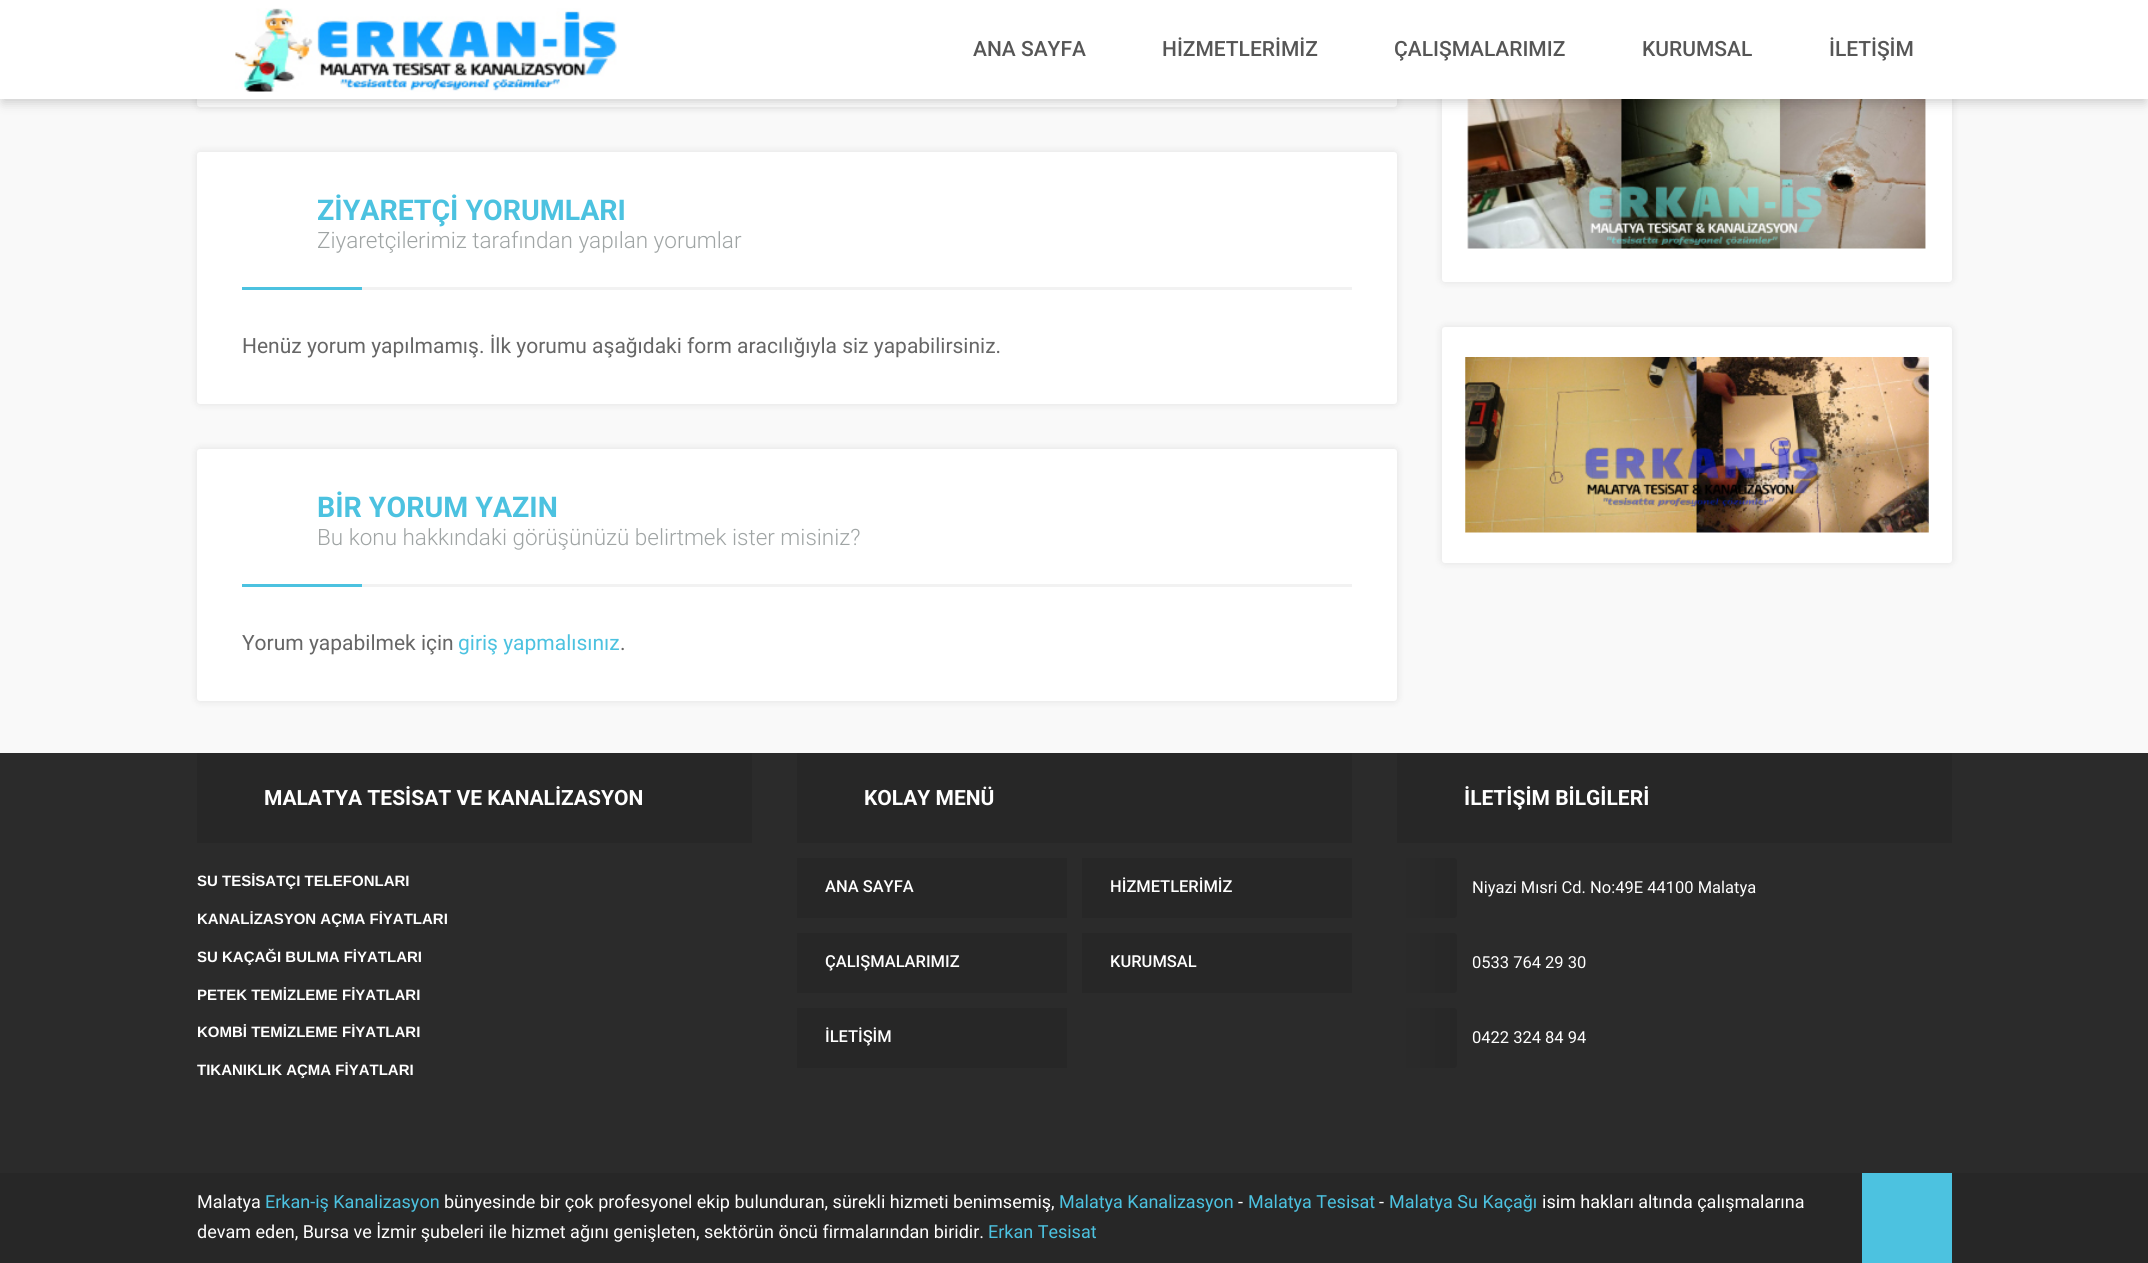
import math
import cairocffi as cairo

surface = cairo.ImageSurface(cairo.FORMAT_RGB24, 2148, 1263)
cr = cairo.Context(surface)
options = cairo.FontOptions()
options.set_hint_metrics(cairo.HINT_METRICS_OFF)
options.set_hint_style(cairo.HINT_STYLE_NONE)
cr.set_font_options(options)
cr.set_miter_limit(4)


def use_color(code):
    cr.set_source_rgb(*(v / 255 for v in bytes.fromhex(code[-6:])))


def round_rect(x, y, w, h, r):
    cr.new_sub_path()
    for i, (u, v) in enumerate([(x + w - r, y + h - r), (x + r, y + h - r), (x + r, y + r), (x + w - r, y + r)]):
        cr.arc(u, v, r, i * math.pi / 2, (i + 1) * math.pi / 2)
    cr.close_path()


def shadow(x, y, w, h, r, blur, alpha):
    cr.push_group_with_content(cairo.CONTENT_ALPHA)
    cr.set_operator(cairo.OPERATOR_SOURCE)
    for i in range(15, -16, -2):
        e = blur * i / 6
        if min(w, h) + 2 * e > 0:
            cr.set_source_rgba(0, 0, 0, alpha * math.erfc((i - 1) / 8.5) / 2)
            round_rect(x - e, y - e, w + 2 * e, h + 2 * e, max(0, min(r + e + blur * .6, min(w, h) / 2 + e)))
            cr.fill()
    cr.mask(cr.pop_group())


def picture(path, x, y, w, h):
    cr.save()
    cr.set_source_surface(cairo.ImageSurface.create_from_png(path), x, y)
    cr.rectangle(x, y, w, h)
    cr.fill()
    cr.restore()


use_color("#f9f9f9")
cr.paint()
use_color("#000000")
shadow(197, -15, 1200, 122, 3, 4, 0.1)
use_color("#ffffff")
round_rect(197, -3, 1200, 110, 3)
cr.fill()
use_color("#000000")
shadow(1442, 56, 510, 226, 3, 4, 0.1)
use_color("#ffffff")
round_rect(1442, 56, 510, 226, 3)
cr.fill()
picture("img2.png", 1467, 99, 459, 150)
use_color("#000000")
shadow(3, 9, 2142, 93, 0, 6, 0.2)
use_color("#ffffff")
cr.rectangle(0, 0, 2148, 99)
cr.fill()
picture("img1.png", 235, 8, 382, 84)
cr.select_font_face("Roboto Medium")
cr.set_font_size(21)
use_color("#565656")
cr.move_to(973, 56)
cr.show_text("ANA SAYFA")
cr.move_to(1162, 56)
cr.show_text("HİZMETLERİMİZ")
cr.move_to(1394, 56)
cr.show_text("ÇALIŞMALARIMIZ")
cr.move_to(1642, 56)
cr.show_text("KURUMSAL")
cr.move_to(1829, 56)
cr.show_text("İLETİŞİM")
use_color("#000000")
shadow(197, 152, 1200, 252, 3, 4, 0.1)
use_color("#ffffff")
round_rect(197, 152, 1200, 252, 3)
cr.fill()
cr.select_font_face("Roboto", cairo.FONT_SLANT_NORMAL, cairo.FONT_WEIGHT_BOLD)
cr.set_font_size(28.5)
use_color("#4cc2e0")
cr.move_to(317, 220)
cr.show_text("ZİYARETÇİ YORUMLARI")
cr.select_font_face("Roboto Light")
cr.set_font_size(22.5)
use_color("#9fa4a4")
cr.move_to(317, 248)
cr.show_text("Ziyaretçilerimiz tarafından yapılan yorumlar")
use_color("#4cc2e0")
cr.rectangle(242, 287, 120, 3)
cr.fill()
use_color("#f2f2f2")
cr.rectangle(362, 287, 990, 3)
cr.fill()
cr.select_font_face("Roboto")
cr.set_font_size(21)
use_color("#666666")
cr.move_to(242, 353)
cr.show_text("Henüz yorum yapılmamış. İlk yorumu aşağıdaki form aracılığıyla siz yapabilirsiniz.")
use_color("#000000")
shadow(197, 449, 1200, 252, 3, 4, 0.1)
use_color("#ffffff")
round_rect(197, 449, 1200, 252, 3)
cr.fill()
cr.select_font_face("Roboto", cairo.FONT_SLANT_NORMAL, cairo.FONT_WEIGHT_BOLD)
cr.set_font_size(28.5)
use_color("#4cc2e0")
cr.move_to(317, 517)
cr.show_text("BİR YORUM YAZIN")
cr.select_font_face("Roboto Light")
cr.set_font_size(22.5)
use_color("#9fa4a4")
cr.move_to(317, 545)
cr.show_text("Bu konu hakkındaki görüşünüzü belirtmek ister misiniz?")
use_color("#4cc2e0")
cr.rectangle(242, 584, 120, 3)
cr.fill()
use_color("#f2f2f2")
cr.rectangle(362, 584, 990, 3)
cr.fill()
cr.select_font_face("Roboto")
cr.set_font_size(21)
use_color("#666666")
cr.move_to(242, 650)
cr.show_text("Yorum yapabilmek için")
use_color("#4cc2e0")
cr.move_to(458, 650)
cr.show_text("giriş yapmalısınız")
use_color("#666666")
cr.move_to(620, 650)
cr.show_text(".")
use_color("#000000")
shadow(1442, 327, 510, 236, 3, 4, 0.1)
use_color("#ffffff")
round_rect(1442, 327, 510, 236, 3)
cr.fill()
picture("img3.png", 1465, 357, 464, 176)
use_color("#2b2b2b")
cr.rectangle(0, 753, 2148, 420)
cr.fill()
use_color("#272727")
cr.rectangle(197, 753, 555, 90)
cr.fill()
cr.select_font_face("Roboto", cairo.FONT_SLANT_NORMAL, cairo.FONT_WEIGHT_BOLD)
use_color("#ffffff")
cr.move_to(264, 805)
cr.show_text("MALATYA TESİSAT VE KANALİZASYON")
cr.select_font_face("Liberation Sans", cairo.FONT_SLANT_NORMAL, cairo.FONT_WEIGHT_BOLD)
cr.set_font_size(15)
cr.move_to(197, 886)
cr.show_text("SU TESİSATÇI TELEFONLARI")
cr.move_to(197, 924)
cr.show_text("KANALİZASYON AÇMA FİYATLARI")
cr.move_to(197, 962)
cr.show_text("SU KAÇAĞI BULMA FİYATLARI")
cr.move_to(197, 1000)
cr.show_text("PETEK TEMİZLEME FİYATLARI")
cr.move_to(197, 1037)
cr.show_text("KOMBİ TEMİZLEME FİYATLARI")
cr.move_to(197, 1075)
cr.show_text("TIKANIKLIK AÇMA FİYATLARI")
use_color("#272727")
cr.rectangle(797, 753, 555, 90)
cr.fill()
cr.select_font_face("Roboto", cairo.FONT_SLANT_NORMAL, cairo.FONT_WEIGHT_BOLD)
cr.set_font_size(21)
use_color("#ffffff")
cr.move_to(864, 805)
cr.show_text("KOLAY MENÜ")
use_color("#272727")
cr.rectangle(797, 858, 270, 60)
cr.fill()
cr.select_font_face("Roboto Medium")
cr.set_font_size(16.5)
use_color("#ffffff")
cr.move_to(825, 892)
cr.show_text("ANA SAYFA")
use_color("#272727")
cr.rectangle(1082, 858, 270, 60)
cr.fill()
use_color("#ffffff")
cr.move_to(1110, 892)
cr.show_text("HİZMETLERİMİZ")
use_color("#272727")
cr.rectangle(797, 933, 270, 60)
cr.fill()
use_color("#ffffff")
cr.move_to(825, 967)
cr.show_text("ÇALIŞMALARIMIZ")
use_color("#272727")
cr.rectangle(1082, 933, 270, 60)
cr.fill()
use_color("#ffffff")
cr.move_to(1110, 967)
cr.show_text("KURUMSAL")
use_color("#272727")
cr.rectangle(797, 1008, 270, 60)
cr.fill()
use_color("#ffffff")
cr.move_to(825, 1042)
cr.show_text("İLETİŞİM")
use_color("#272727")
cr.rectangle(1397, 753, 555, 90)
cr.fill()
cr.select_font_face("Roboto", cairo.FONT_SLANT_NORMAL, cairo.FONT_WEIGHT_BOLD)
cr.set_font_size(21)
use_color("#ffffff")
cr.move_to(1464, 805)
cr.show_text("İLETİŞİM BİLGİLERİ")
gradient = cairo.LinearGradient(1397, 888, 1457, 888)
gradient.add_color_stop_rgba(0, 0.169, 0.169, 0.169, 1)
gradient.add_color_stop_rgba(1, 0.153, 0.153, 0.153, 1)
cr.set_source(gradient)
round_rect(1397, 858, 60, 60, 3)
cr.fill()
cr.select_font_face("Roboto")
cr.set_font_size(16.5)
use_color("#ffffff")
cr.move_to(1472, 893)
cr.show_text("Niyazi Mısri Cd. No:49E 44100 Malatya")
gradient = cairo.LinearGradient(1397, 963, 1457, 963)
gradient.add_color_stop_rgba(0, 0.169, 0.169, 0.169, 1)
gradient.add_color_stop_rgba(1, 0.153, 0.153, 0.153, 1)
cr.set_source(gradient)
round_rect(1397, 933, 60, 60, 3)
cr.fill()
use_color("#ffffff")
cr.move_to(1472, 968)
cr.show_text("0533 764 29 30")
gradient = cairo.LinearGradient(1397, 1038, 1457, 1038)
gradient.add_color_stop_rgba(0, 0.169, 0.169, 0.169, 1)
gradient.add_color_stop_rgba(1, 0.153, 0.153, 0.153, 1)
cr.set_source(gradient)
round_rect(1397, 1008, 60, 60, 3)
cr.fill()
use_color("#ffffff")
cr.move_to(1472, 1043)
cr.show_text("0422 324 84 94")
use_color("#272727")
cr.rectangle(0, 1173, 2148, 90)
cr.fill()
cr.set_font_size(18)
use_color("#ffffff")
cr.move_to(197, 1208)
cr.show_text("Malatya")
use_color("#4cc2e0")
cr.move_to(265, 1208)
cr.show_text("Erkan-iş Kanalizasyon")
use_color("#ffffff")
cr.move_to(444, 1208)
cr.show_text("bünyesinde bir çok profesyonel ekip bulunduran, sürekli hizmeti benimsemiş,")
use_color("#4cc2e0")
cr.move_to(1059, 1208)
cr.show_text("Malatya Kanalizasyon")
use_color("#ffffff")
cr.move_to(1238, 1208)
cr.show_text("-")
use_color("#4cc2e0")
cr.move_to(1248, 1208)
cr.show_text("Malatya Tesisat")
use_color("#ffffff")
cr.move_to(1379, 1208)
cr.show_text("-")
use_color("#4cc2e0")
cr.move_to(1389, 1208)
cr.show_text("Malatya Su Kaçağı")
use_color("#ffffff")
cr.move_to(1542, 1208)
cr.show_text("isim hakları altında çalışmalarına")
cr.move_to(197, 1238)
cr.show_text("devam eden, Bursa ve İzmir şubeleri ile hizmet ağını genişleten, sektörün öncü firmalarından biridir.")
use_color("#4cc2e0")
cr.move_to(988, 1238)
cr.show_text("Erkan Tesisat")
cr.rectangle(1862, 1173, 90, 90)
cr.fill()
surface.write_to_png("result.png")
